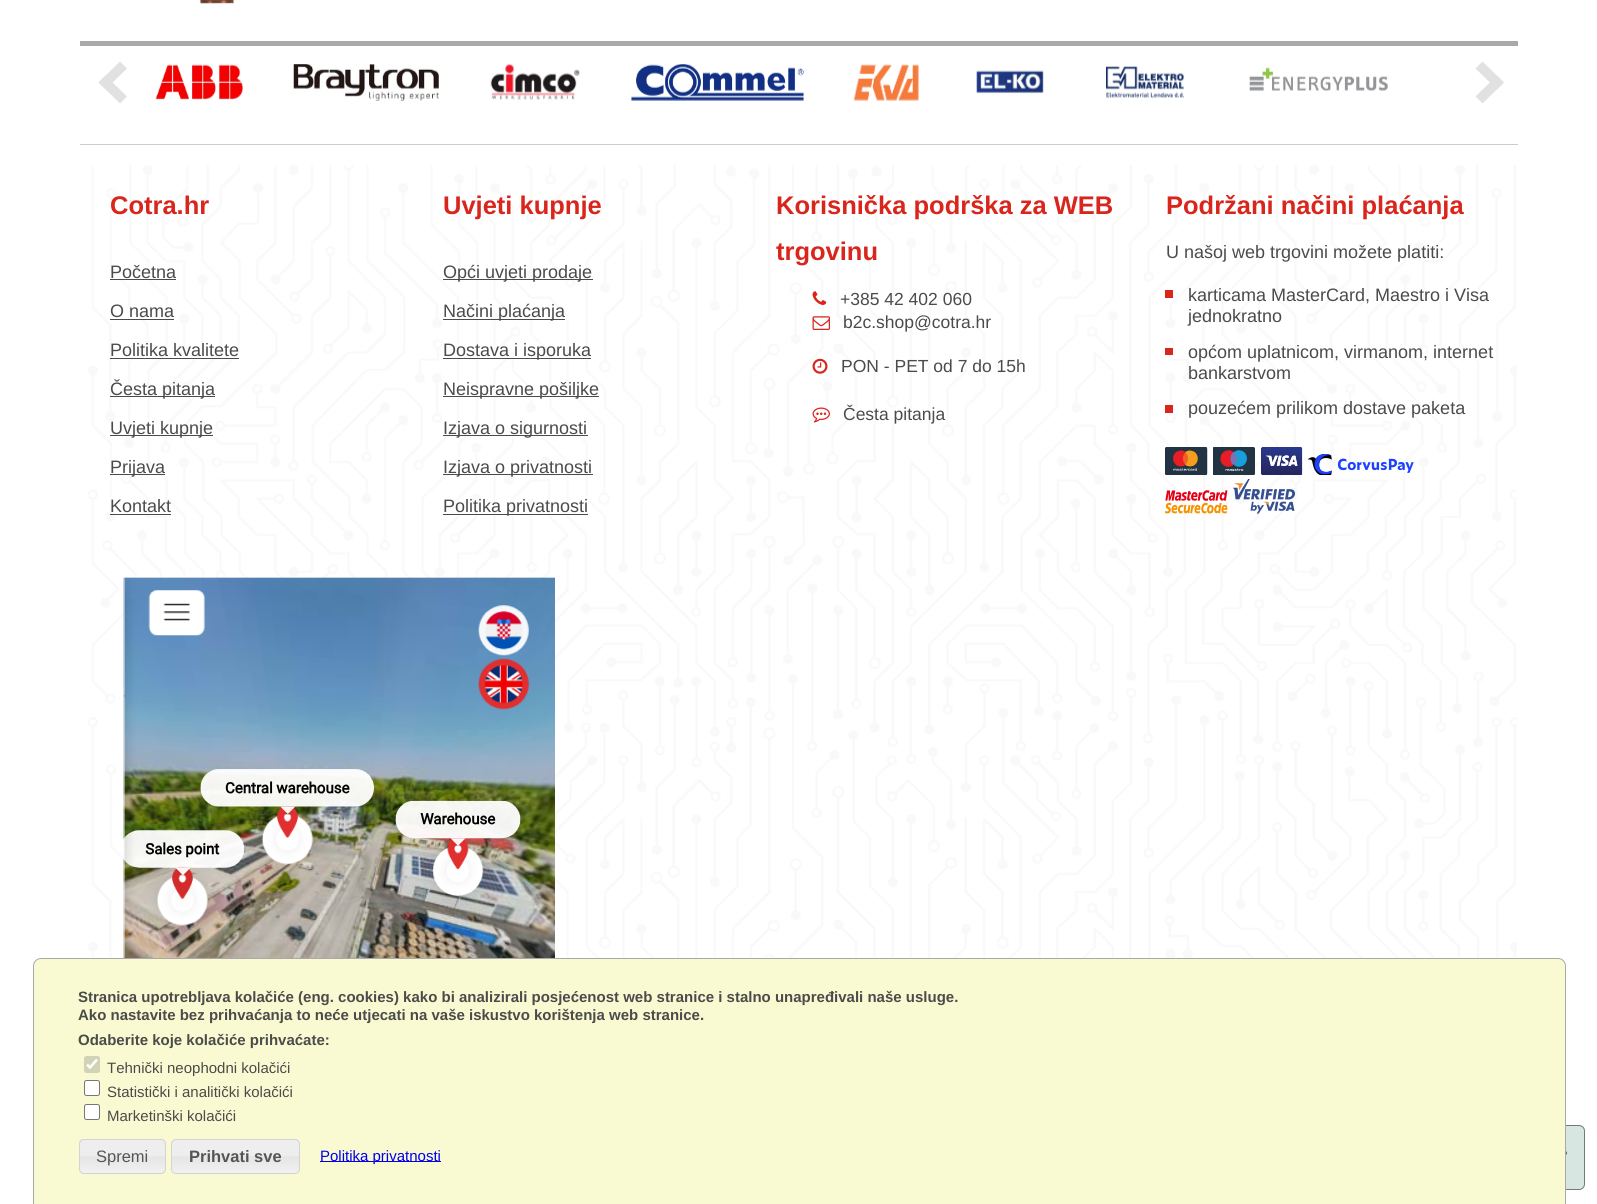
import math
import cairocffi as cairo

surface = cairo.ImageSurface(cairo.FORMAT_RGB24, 1597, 1204)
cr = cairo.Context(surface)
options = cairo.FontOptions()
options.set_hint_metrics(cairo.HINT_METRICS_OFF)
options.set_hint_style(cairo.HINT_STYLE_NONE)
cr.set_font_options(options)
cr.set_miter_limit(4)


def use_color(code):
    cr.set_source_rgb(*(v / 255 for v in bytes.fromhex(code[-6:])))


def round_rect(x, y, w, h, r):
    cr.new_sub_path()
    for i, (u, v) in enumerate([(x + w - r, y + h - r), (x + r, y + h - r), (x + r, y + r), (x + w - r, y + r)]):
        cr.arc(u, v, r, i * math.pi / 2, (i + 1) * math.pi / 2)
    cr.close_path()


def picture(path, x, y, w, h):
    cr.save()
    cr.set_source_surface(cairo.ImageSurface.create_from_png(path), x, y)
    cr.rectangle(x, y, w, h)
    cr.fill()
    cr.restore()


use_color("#ffffff")
cr.paint()
picture("img1.png", 199, 0, 36, 4)
use_color("#d8e6e2")
round_rect(1523, 1125, 62, 65, 6)
cr.fill()
round_rect(1523.5, 1125.5, 61, 64, 5.5)
cr.set_source_rgba(0.294, 0.294, 0.294, 0.7)
cr.set_line_width(1)
cr.stroke()
picture("img2.png", 1566, 1151, 1, 4)
use_color("#a9a9a9")
cr.rectangle(80, 41, 1438, 5)
cr.fill()
use_color("#e1e1e1")
cr.new_path()
cr.move_to(120, 103.5)
cr.line_to(98.5, 82.5)
cr.line_to(105.5, 75.5)
cr.line_to(127, 96.5)
cr.close_path()
cr.fill()
cr.new_path()
cr.move_to(105.5, 89.5)
cr.line_to(98.5, 82.5)
cr.line_to(120, 61.5)
cr.line_to(127, 68.5)
cr.close_path()
cr.fill()
picture("img3.png", 155, 64, 88, 36)
picture("img4.png", 293, 64, 146, 37)
picture("img5.png", 490, 64, 90, 36)
picture("img6.png", 631, 64, 173, 37)
picture("img7.png", 853, 64, 66, 37)
picture("img8.png", 976, 70, 68, 24)
picture("img9.png", 1106, 66, 79, 32)
picture("img10.png", 1249, 65, 139, 26)
cr.new_path()
cr.move_to(1482.5, 61.5)
cr.line_to(1504, 82.5)
cr.line_to(1497, 89.5)
cr.line_to(1475.5, 68.5)
cr.close_path()
cr.fill()
cr.new_path()
cr.move_to(1497, 75.5)
cr.line_to(1504, 82.5)
cr.line_to(1482.5, 103.5)
cr.line_to(1475.5, 96.5)
cr.close_path()
cr.fill()
use_color("#cccccc")
cr.rectangle(80, 144, 1438, 1)
cr.fill()
picture("img11.png", 88, 165, 1429, 793)
cr.select_font_face("Liberation Sans", cairo.FONT_SLANT_NORMAL, cairo.FONT_WEIGHT_BOLD)
cr.set_font_size(25.5)
use_color("#da251d")
cr.move_to(110, 214)
cr.show_text("Cotra.hr")
cr.select_font_face("Liberation Sans")
cr.set_font_size(18)
use_color("#4b4b4b")
cr.move_to(110, 278)
cr.show_text("Početna")
cr.rectangle(110, 279, 66, 1)
cr.fill()
cr.move_to(110, 317)
cr.show_text("O nama")
cr.rectangle(110, 319, 64, 1)
cr.fill()
cr.move_to(110, 356)
cr.show_text("Politika kvalitete")
cr.rectangle(110, 358, 129, 1)
cr.fill()
cr.rectangle(110, 396, 105, 1)
cr.fill()
cr.move_to(110, 395)
cr.show_text("Česta pitanja")
cr.rectangle(110, 435, 103, 1)
cr.fill()
cr.move_to(110, 434)
cr.show_text("Uvjeti kupnje")
cr.rectangle(110, 474, 55, 1)
cr.fill()
cr.move_to(110, 473)
cr.show_text("Prijava")
cr.move_to(110, 512)
cr.show_text("Kontakt")
cr.rectangle(110, 514, 61, 1)
cr.fill()
cr.select_font_face("Liberation Sans", cairo.FONT_SLANT_NORMAL, cairo.FONT_WEIGHT_BOLD)
cr.set_font_size(25.5)
use_color("#da251d")
cr.move_to(443, 214)
cr.show_text("Uvjeti kupnje")
use_color("#4b4b4b")
cr.rectangle(443, 279, 150, 1)
cr.fill()
cr.select_font_face("Liberation Sans")
cr.set_font_size(18)
cr.move_to(443, 278)
cr.show_text("Opći uvjeti prodaje")
cr.rectangle(443, 319, 122, 1)
cr.fill()
cr.move_to(443, 317)
cr.show_text("Načini plaćanja")
cr.rectangle(443, 358, 148, 1)
cr.fill()
cr.move_to(443, 356)
cr.show_text("Dostava i isporuka")
cr.rectangle(443, 396, 156, 1)
cr.fill()
cr.move_to(443, 395)
cr.show_text("Neispravne pošiljke")
cr.rectangle(443, 435, 145, 1)
cr.fill()
cr.move_to(443, 434)
cr.show_text("Izjava o sigurnosti")
cr.rectangle(443, 474, 150, 1)
cr.fill()
cr.move_to(443, 473)
cr.show_text("Izjava o privatnosti")
cr.rectangle(443, 514, 145, 1)
cr.fill()
cr.move_to(443, 512)
cr.show_text("Politika privatnosti")
cr.select_font_face("Liberation Sans", cairo.FONT_SLANT_NORMAL, cairo.FONT_WEIGHT_BOLD)
cr.set_font_size(25.5)
use_color("#da251d")
cr.move_to(776, 214)
cr.show_text("Korisnička podrška za WEB")
cr.move_to(776, 260)
cr.show_text("trgovinu")
picture("img12.png", 812, 291, 15, 14)
cr.select_font_face("Liberation Sans")
cr.set_font_size(17.5)
use_color("#4b4b4b")
cr.move_to(840, 305)
cr.show_text("+385 42 402 060")
picture("img13.png", 812, 316, 18, 14)
cr.move_to(843, 328)
cr.show_text("b2c.shop@cotra.hr")
picture("img14.png", 812, 358, 16, 16)
cr.move_to(841, 372)
cr.show_text("PON - PET od 7 do 15h")
picture("img15.png", 812, 407, 18, 16)
cr.move_to(843, 420)
cr.show_text("Česta pitanja")
cr.select_font_face("Liberation Sans", cairo.FONT_SLANT_NORMAL, cairo.FONT_WEIGHT_BOLD)
cr.set_font_size(25.5)
use_color("#da251d")
cr.move_to(1166, 214)
cr.show_text("Podržani načini plaćanja")
cr.select_font_face("Liberation Sans")
cr.set_font_size(18)
use_color("#4b4b4b")
cr.move_to(1166, 258)
cr.show_text("U našoj web trgovini možete platiti:")
use_color("#da251d")
cr.rectangle(1165, 290, 8, 8)
cr.fill()
use_color("#4b4b4b")
cr.move_to(1188, 301)
cr.show_text("karticama MasterCard, Maestro i Visa")
cr.move_to(1188, 322)
cr.show_text("jednokratno")
use_color("#da251d")
cr.rectangle(1165, 348, 8, 7)
cr.fill()
use_color("#4b4b4b")
cr.move_to(1188, 358)
cr.show_text("općom uplatnicom, virmanom, internet")
cr.move_to(1188, 379)
cr.show_text("bankarstvom")
use_color("#da251d")
cr.rectangle(1165, 405, 8, 8)
cr.fill()
use_color("#4b4b4b")
cr.move_to(1188, 414)
cr.show_text("pouzećem prilikom dostave paketa")
picture("img16.png", 1165, 447, 43, 28)
picture("img17.png", 1213, 447, 42, 28)
picture("img18.png", 1261, 447, 42, 28)
picture("img19.png", 1308, 454, 106, 21)
picture("img20.png", 1165, 490, 63, 24)
picture("img21.png", 1233, 479, 62, 35)
picture("img22.png", 123, 577, 432, 381)
use_color("#fafad2")
round_rect(33.5, 958.5, 1532, 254, 7.5)
cr.fill_preserve()
use_color("#a9a9a9")
cr.stroke()
cr.select_font_face("Liberation Sans", cairo.FONT_SLANT_NORMAL, cairo.FONT_WEIGHT_BOLD)
cr.set_font_size(15)
use_color("#4b4b4b")
cr.move_to(78, 1002)
cr.show_text("Stranica upotrebljava kolačiće (eng. cookies) kako bi analizirali posjećenost web stranice i stalno unapređivali naše usluge.")
cr.move_to(78, 1020)
cr.show_text("Ako nastavite bez prihvaćanja to neće utjecati na vaše iskustvo korištenja web stranice.")
cr.move_to(78, 1045)
cr.show_text("Odaberite koje kolačiće prihvaćate:")
use_color("#d2d2b6")
round_rect(84, 1056, 16, 17, 2.5)
cr.fill()
cr.new_path()
cr.move_to(87, 1064.5)
cr.line_to(90, 1067.5)
cr.line_to(97, 1059.5)
use_color("#ffffff")
cr.set_line_width(2.6)
cr.stroke()
cr.select_font_face("Liberation Sans")
use_color("#4b4b4b")
cr.move_to(107, 1073)
cr.show_text("Tehnički neophodni kolačići")
use_color("#ffffff")
round_rect(84.5, 1080.5, 15, 15, 2)
cr.fill_preserve()
use_color("#767676")
cr.set_line_width(1)
cr.stroke()
use_color("#4b4b4b")
cr.move_to(107, 1097)
cr.show_text("Statistički i analitički kolačići")
use_color("#ffffff")
round_rect(84.5, 1104.5, 15, 15, 2)
cr.fill_preserve()
use_color("#767676")
cr.stroke()
use_color("#4b4b4b")
cr.move_to(107, 1121)
cr.show_text("Marketinški kolačići")
picture("img23.png", 79, 1139, 87, 35)
round_rect(79.5, 1139.5, 86, 34, 4.5)
use_color("#d3d3d3")
cr.stroke()
cr.set_font_size(16.5)
use_color("#555555")
cr.move_to(96, 1162)
cr.show_text("Spremi")
picture("img24.png", 171, 1139, 129, 35)
round_rect(171.5, 1139.5, 128, 34, 4.5)
use_color("#d3d3d3")
cr.stroke()
cr.select_font_face("Liberation Sans", cairo.FONT_SLANT_NORMAL, cairo.FONT_WEIGHT_BOLD)
use_color("#555555")
cr.move_to(189, 1162)
cr.show_text("Prihvati sve")
use_color("#0000ee")
cr.rectangle(320, 1161, 121, 1)
cr.fill()
cr.select_font_face("Liberation Sans")
cr.set_font_size(15)
cr.move_to(320, 1161)
cr.show_text("Politika privatnosti")
surface.write_to_png("result.png")
